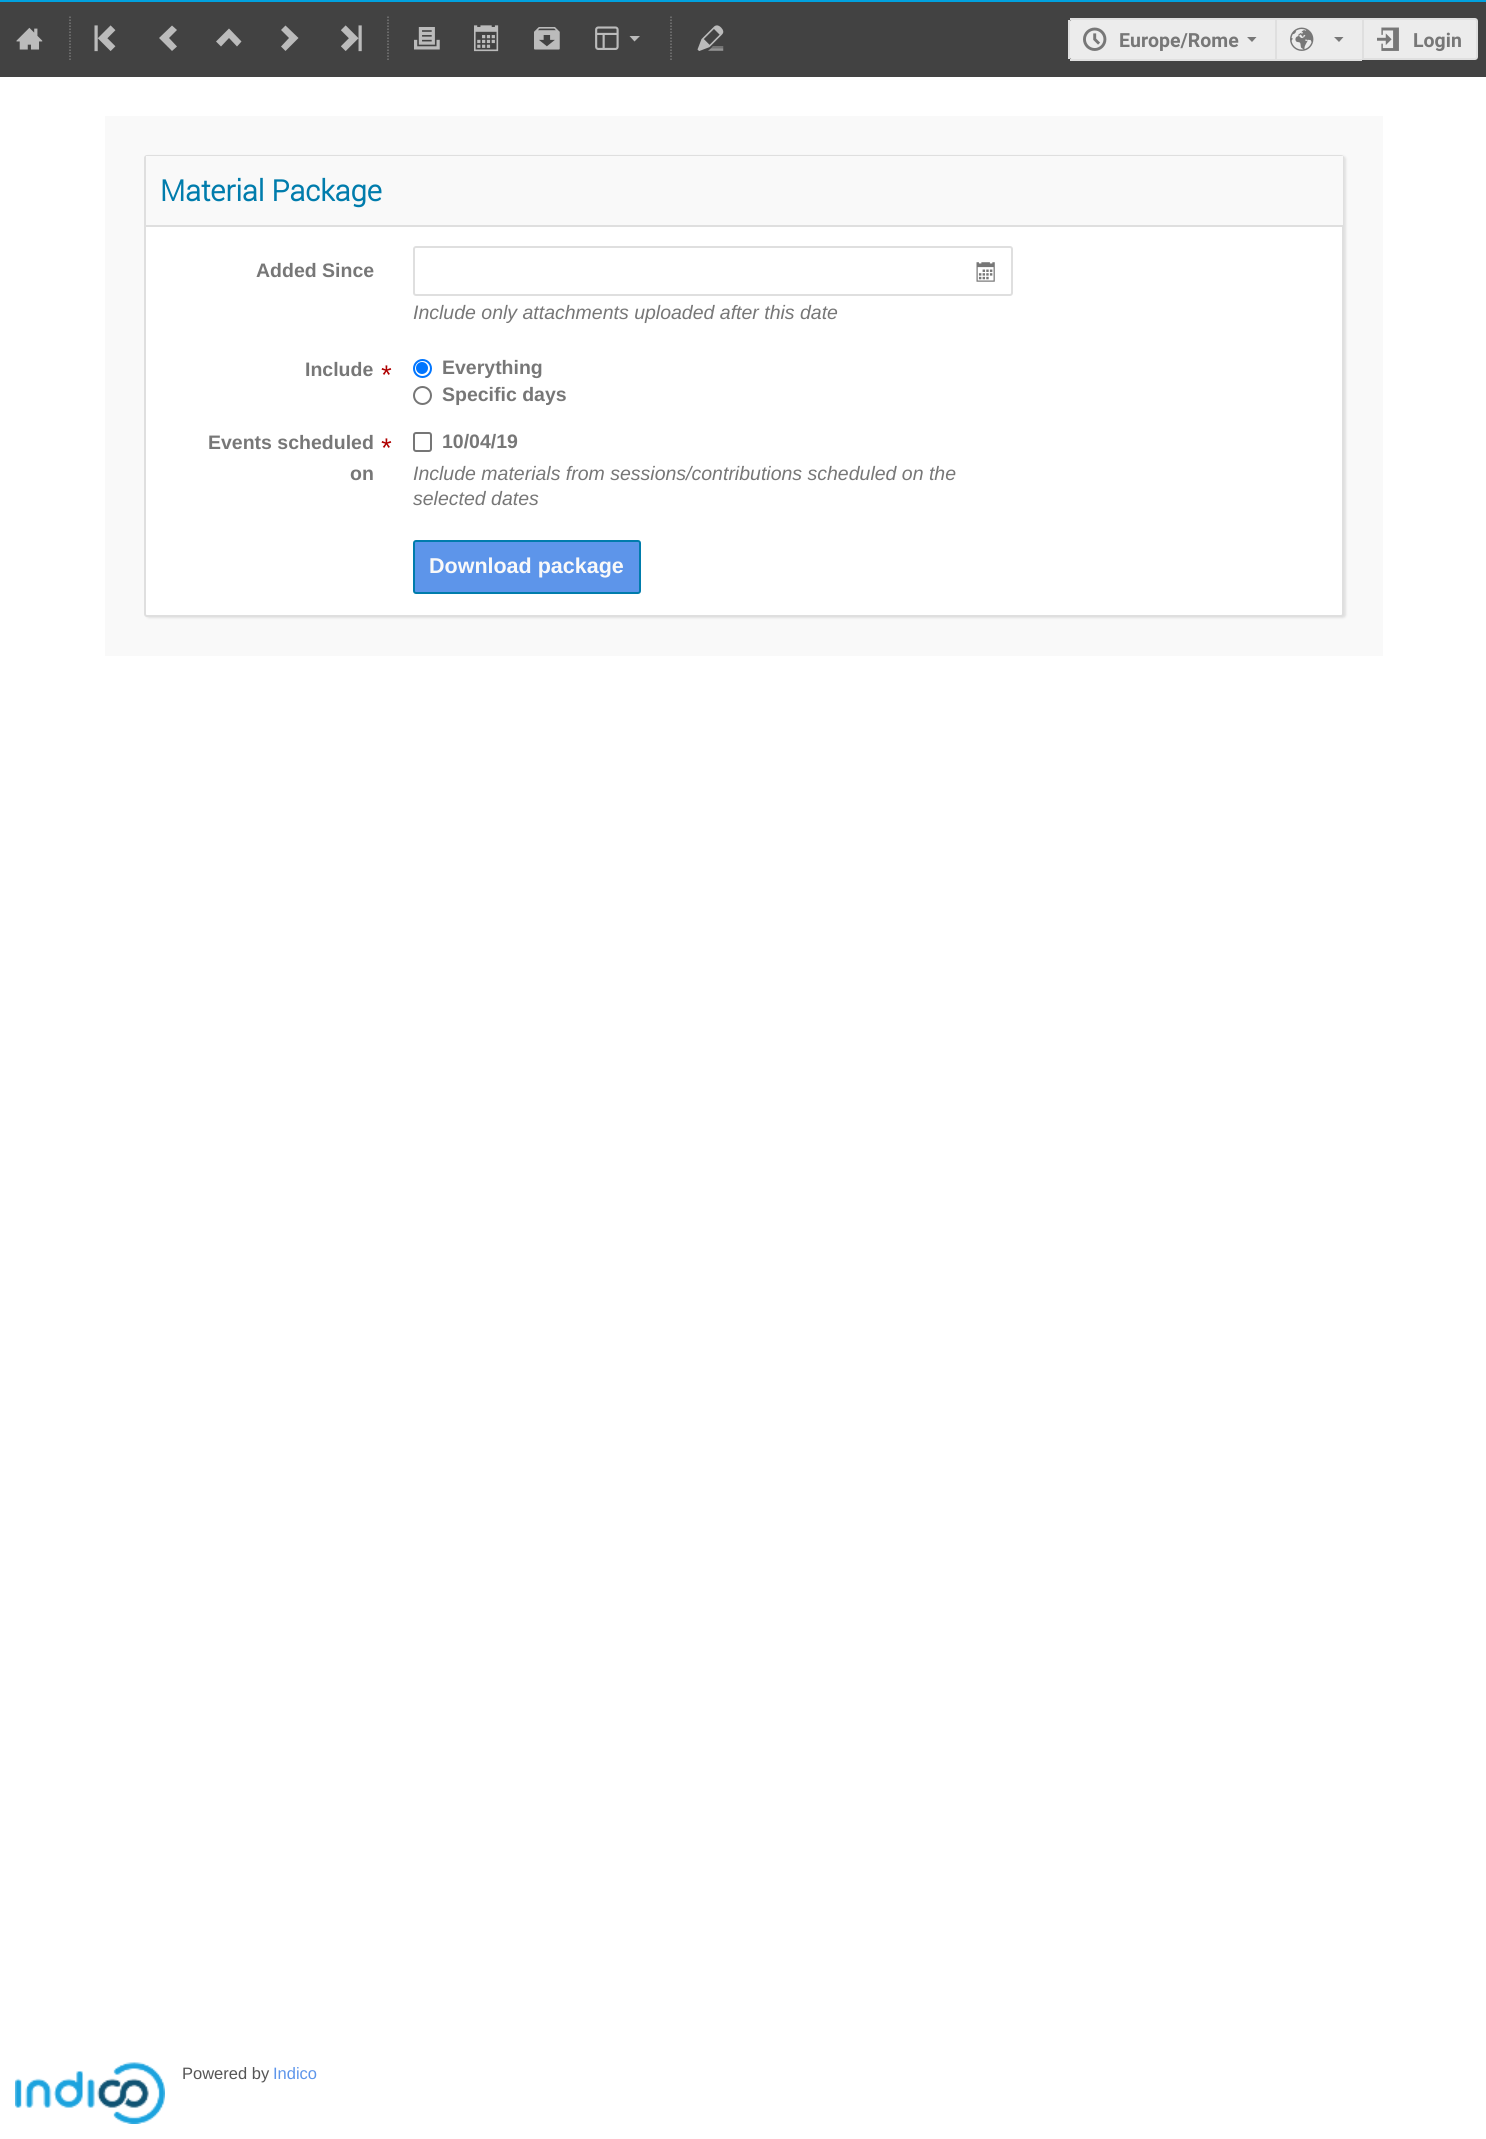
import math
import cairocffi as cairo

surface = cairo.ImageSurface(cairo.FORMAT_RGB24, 1486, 2139)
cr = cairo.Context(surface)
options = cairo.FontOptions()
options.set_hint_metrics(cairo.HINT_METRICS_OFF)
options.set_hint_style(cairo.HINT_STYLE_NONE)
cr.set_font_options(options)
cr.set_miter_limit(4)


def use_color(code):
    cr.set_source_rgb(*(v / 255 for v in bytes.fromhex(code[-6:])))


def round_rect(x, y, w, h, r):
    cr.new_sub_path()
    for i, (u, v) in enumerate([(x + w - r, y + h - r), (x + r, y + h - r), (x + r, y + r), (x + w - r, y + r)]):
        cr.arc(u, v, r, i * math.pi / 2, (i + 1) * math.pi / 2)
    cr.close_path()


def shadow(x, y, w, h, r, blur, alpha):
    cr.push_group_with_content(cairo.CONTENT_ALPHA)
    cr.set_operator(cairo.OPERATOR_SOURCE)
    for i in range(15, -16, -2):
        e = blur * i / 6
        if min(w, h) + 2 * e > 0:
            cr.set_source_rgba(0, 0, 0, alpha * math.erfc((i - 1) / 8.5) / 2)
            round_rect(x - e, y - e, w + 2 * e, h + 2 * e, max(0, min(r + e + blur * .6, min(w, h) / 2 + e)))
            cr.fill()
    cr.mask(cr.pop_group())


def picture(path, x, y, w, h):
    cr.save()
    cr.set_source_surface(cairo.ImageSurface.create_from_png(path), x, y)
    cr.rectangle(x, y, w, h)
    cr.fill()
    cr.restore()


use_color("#ffffff")
cr.paint()
use_color("#424242")
cr.rectangle(0, 2, 1486, 75)
cr.fill()
use_color("#00a1df")
cr.rectangle(0, 0, 1486, 2)
cr.fill()
picture("img1.png", 16, 27, 27, 23)
cr.new_path()
cr.move_to(70, 16.5)
cr.line_to(70, 61.5)
use_color("#777777")
cr.set_line_width(1.5)
cr.set_dash([1.5, 1.5])
cr.stroke()
picture("img2.png", 94, 25, 22, 27)
use_color("#bbbbbb")
cr.new_path()
cr.move_to(172, 51)
cr.line_to(177, 46.5)
cr.line_to(169, 38)
cr.line_to(177, 30)
cr.line_to(172, 25.5)
cr.line_to(159, 38)
cr.close_path()
cr.fill()
cr.new_path()
cr.move_to(216, 41.5)
cr.line_to(221, 46.5)
cr.line_to(229, 38)
cr.line_to(237, 46.5)
cr.line_to(241.5, 41.5)
cr.line_to(229, 28.5)
cr.close_path()
cr.fill()
cr.new_path()
cr.move_to(285.5, 25.5)
cr.line_to(281, 30)
cr.line_to(289, 38)
cr.line_to(281, 46.5)
cr.line_to(285.5, 51)
cr.line_to(298.5, 38)
cr.close_path()
cr.fill()
picture("img3.png", 341, 25, 21, 27)
cr.new_path()
cr.move_to(388, 16.5)
cr.line_to(388, 61.5)
use_color("#777777")
cr.stroke()
picture("img4.png", 414, 27, 26, 23)
picture("img5.png", 474, 25, 25, 27)
picture("img6.png", 534, 27, 26, 23)
picture("img7.png", 595, 26, 24, 24)
use_color("#bbbbbb")
cr.new_path()
cr.move_to(629.5, 36)
cr.line_to(634.5, 41.5)
cr.line_to(640, 36)
cr.close_path()
cr.fill()
cr.new_path()
cr.move_to(671, 16.5)
cr.line_to(671, 61.5)
use_color("#777777")
cr.stroke()
picture("img8.png", 697, 25, 27, 26)
use_color("#ececec")
cr.new_path()
cr.move_to(1071.5, 20)
cr.line_to(1275, 20)
cr.line_to(1275, 59)
cr.line_to(1071.5, 59)
cr.curve_to(1070.5, 59, 1070, 58.5, 1070, 57.5)
cr.line_to(1070, 21.5)
cr.curve_to(1070, 20.5, 1070.5, 20, 1071.5, 20)
cr.close_path()
cr.fill()
use_color("#dfdfdf")
cr.rectangle(1070, 18, 292, 2)
cr.fill()
cr.rectangle(1070, 59, 292, 2)
cr.fill()
cr.rectangle(1068, 20, 2, 39)
cr.fill()
picture("img9.png", 1083, 27, 24, 24)
cr.select_font_face("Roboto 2", cairo.FONT_SLANT_NORMAL, cairo.FONT_WEIGHT_BOLD)
cr.set_font_size(19.5)
use_color("#777777")
cr.move_to(1119, 47)
cr.show_text("Europe/Rome")
cr.new_path()
cr.move_to(1247, 37)
cr.line_to(1252, 42)
cr.line_to(1256.5, 37)
cr.close_path()
cr.fill()
use_color("#ececec")
cr.rectangle(1277, 20, 85, 39)
cr.fill()
use_color("#dfdfdf")
cr.rectangle(1275, 18, 2, 42)
cr.fill()
picture("img10.png", 1290, 27, 24, 24)
use_color("#777777")
cr.new_path()
cr.move_to(1334, 37)
cr.line_to(1339, 42)
cr.line_to(1343.5, 37)
cr.close_path()
cr.fill()
use_color("#ececec")
cr.new_path()
cr.move_to(1363, 19)
cr.line_to(1475, 19)
cr.curve_to(1476, 19, 1477, 20, 1477, 21)
cr.line_to(1477, 57)
cr.curve_to(1477, 58, 1476, 59, 1475, 59)
cr.line_to(1363, 59)
cr.close_path()
cr.fill_preserve()
use_color("#dfdfdf")
cr.set_line_width(2)
cr.set_dash([])
cr.stroke()
picture("img11.png", 1377, 27, 22, 24)
use_color("#777777")
cr.move_to(1413, 47)
cr.show_text("Login")
use_color("#f9f9f9")
cr.rectangle(105, 116, 1278, 540)
cr.fill()
use_color("#e1e1e1")
shadow(146, 156, 1200, 462, 3, 1, 1)
use_color("#ffffff")
round_rect(145, 156, 1198, 460, 2)
cr.fill_preserve()
use_color("#dfdfdf")
cr.stroke()
use_color("#f9f9f9")
cr.rectangle(146, 156, 1197, 69)
cr.fill()
use_color("#dfdfdf")
cr.rectangle(146, 225, 1197, 2)
cr.fill()
cr.select_font_face("Roboto", cairo.FONT_SLANT_NORMAL, cairo.FONT_WEIGHT_BOLD)
cr.set_font_size(29.25)
use_color("#007cac")
cr.move_to(160, 201)
cr.show_text("Material Package")
cr.select_font_face("Liberation Sans", cairo.FONT_SLANT_NORMAL, cairo.FONT_WEIGHT_BOLD)
cr.set_font_size(19.5)
use_color("#777777")
cr.move_to(256, 277)
cr.show_text("Added Since")
round_rect(414, 247, 598, 48, 2)
use_color("#dfdfdf")
cr.stroke()
picture("img12.png", 976, 262, 19, 20)
cr.select_font_face("Liberation Sans", cairo.FONT_SLANT_ITALIC)
use_color("#777777")
cr.move_to(413, 319)
cr.show_text("Include only attachments uploaded after this date")
cr.select_font_face("Liberation Sans", cairo.FONT_SLANT_NORMAL, cairo.FONT_WEIGHT_BOLD)
cr.move_to(305, 376)
cr.show_text("Include")
cr.select_font_face("Liberation Sans", cairo.FONT_SLANT_ITALIC)
cr.set_font_size(27)
use_color("#af0000")
cr.move_to(380, 384)
cr.show_text("*")
cr.new_path()
cr.arc(422.5, 368.5, 8.5, 0, 2 * math.pi)
use_color("#0075ff")
cr.stroke()
cr.arc(422, 368, 6, 0, 2 * math.pi)
cr.fill()
cr.select_font_face("Liberation Sans", cairo.FONT_SLANT_NORMAL, cairo.FONT_WEIGHT_BOLD)
cr.set_font_size(19.5)
use_color("#777777")
cr.move_to(442, 374)
cr.show_text("Everything")
cr.new_path()
cr.arc(422.5, 395.5, 8.5, 0, 2 * math.pi)
use_color("#767676")
cr.stroke()
use_color("#777777")
cr.move_to(442, 401)
cr.show_text("Specific days")
cr.move_to(208, 449)
cr.show_text("Events scheduled")
cr.select_font_face("Liberation Sans", cairo.FONT_SLANT_ITALIC)
cr.set_font_size(27)
use_color("#af0000")
cr.move_to(380, 457)
cr.show_text("*")
cr.select_font_face("Liberation Sans", cairo.FONT_SLANT_NORMAL, cairo.FONT_WEIGHT_BOLD)
cr.set_font_size(19.5)
use_color("#777777")
cr.move_to(350, 480)
cr.show_text("on")
round_rect(414, 433, 17, 18, 2)
use_color("#767676")
cr.stroke()
use_color("#777777")
cr.move_to(442, 448)
cr.show_text("10/04/19")
cr.select_font_face("Liberation Sans", cairo.FONT_SLANT_ITALIC)
cr.move_to(413, 480)
cr.show_text("Include materials from sessions/contributions scheduled on the")
cr.move_to(413, 505)
cr.show_text("selected dates")
use_color("#5d95ea")
round_rect(414, 541, 226, 52, 2)
cr.fill_preserve()
use_color("#007cac")
cr.stroke()
cr.select_font_face("Liberation Sans", cairo.FONT_SLANT_NORMAL, cairo.FONT_WEIGHT_BOLD)
cr.set_font_size(21.5)
use_color("#f9f9f9")
cr.move_to(429, 573)
cr.show_text("Download package")
picture("img13.png", 15, 2062, 150, 62)
cr.select_font_face("Liberation Sans")
cr.set_font_size(16.5)
use_color("#555555")
cr.move_to(182, 2079)
cr.show_text("Powered by")
use_color("#5d95ea")
cr.move_to(273, 2079)
cr.show_text("Indico")
surface.write_to_png("result.png")
